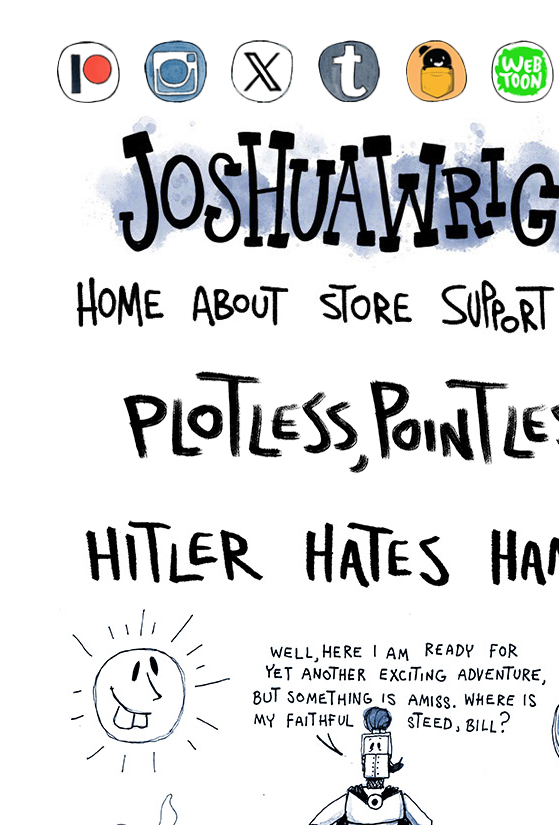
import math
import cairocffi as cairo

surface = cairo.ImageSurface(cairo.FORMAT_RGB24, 559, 825)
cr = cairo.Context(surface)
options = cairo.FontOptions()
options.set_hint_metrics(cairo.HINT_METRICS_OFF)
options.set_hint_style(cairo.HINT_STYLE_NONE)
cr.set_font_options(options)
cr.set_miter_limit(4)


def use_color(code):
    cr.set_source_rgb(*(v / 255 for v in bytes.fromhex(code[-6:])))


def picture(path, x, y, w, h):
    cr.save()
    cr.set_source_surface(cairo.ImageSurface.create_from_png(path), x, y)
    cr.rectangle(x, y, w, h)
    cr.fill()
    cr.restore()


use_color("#ffffff")
cr.paint()
picture("img1.png", 57, 41, 63, 62)
picture("img2.png", 144, 40, 63, 63)
picture("img3.png", 318, 40, 63, 63)
picture("img4.png", 231, 40, 63, 63)
picture("img5.png", 406, 40, 62, 63)
picture("img6.png", 491, 40, 63, 63)
picture("img7.png", 81, 111, 478, 152)
picture("img8.png", 73, 273, 95, 56)
picture("img9.png", 191, 281, 102, 47)
picture("img10.png", 313, 266, 104, 63)
picture("img11.png", 441, 275, 118, 62)
picture("img12.png", 123, 371, 436, 103)
picture("img13.png", 59, 520, 500, 305)
surface.write_to_png("result.png")
